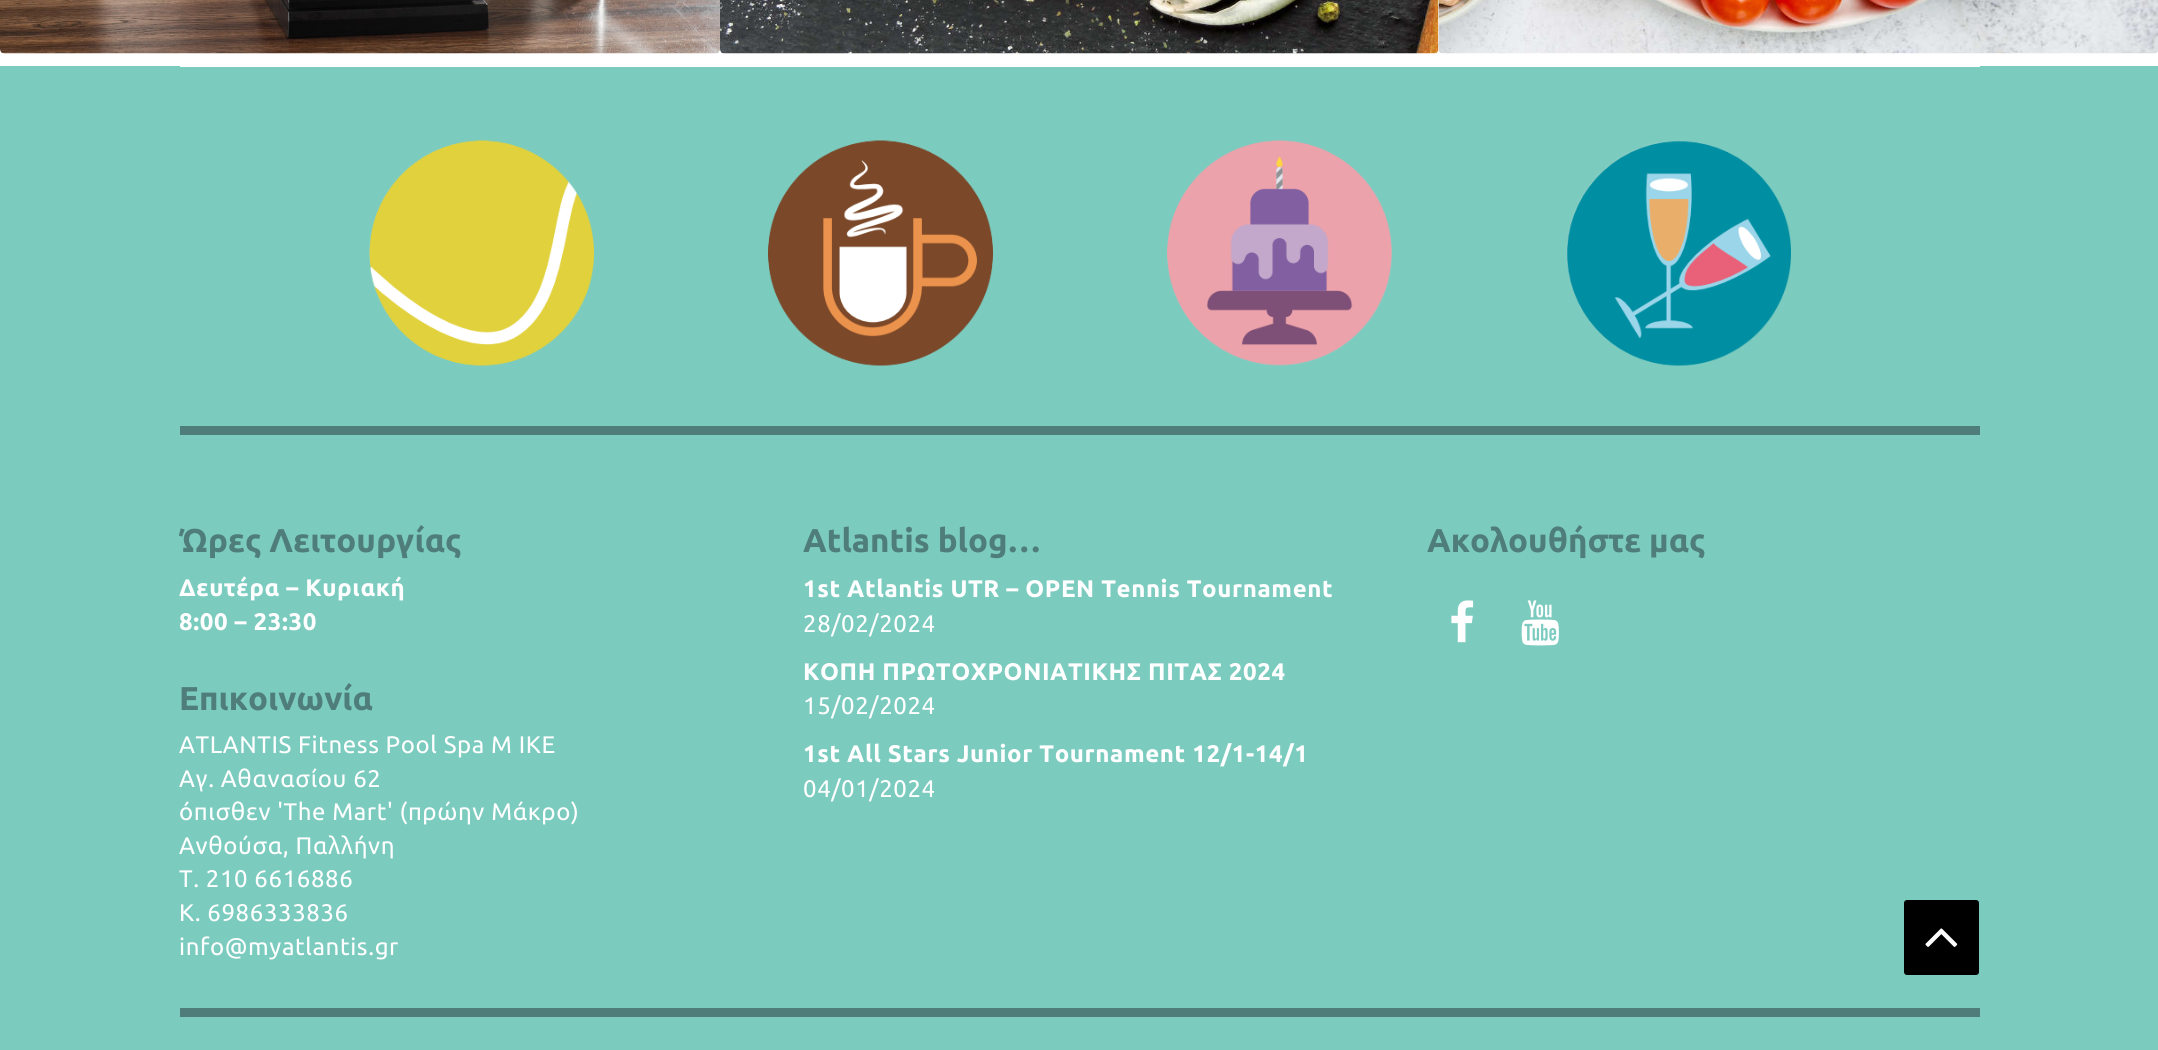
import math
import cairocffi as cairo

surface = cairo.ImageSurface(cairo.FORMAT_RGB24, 2158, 1050)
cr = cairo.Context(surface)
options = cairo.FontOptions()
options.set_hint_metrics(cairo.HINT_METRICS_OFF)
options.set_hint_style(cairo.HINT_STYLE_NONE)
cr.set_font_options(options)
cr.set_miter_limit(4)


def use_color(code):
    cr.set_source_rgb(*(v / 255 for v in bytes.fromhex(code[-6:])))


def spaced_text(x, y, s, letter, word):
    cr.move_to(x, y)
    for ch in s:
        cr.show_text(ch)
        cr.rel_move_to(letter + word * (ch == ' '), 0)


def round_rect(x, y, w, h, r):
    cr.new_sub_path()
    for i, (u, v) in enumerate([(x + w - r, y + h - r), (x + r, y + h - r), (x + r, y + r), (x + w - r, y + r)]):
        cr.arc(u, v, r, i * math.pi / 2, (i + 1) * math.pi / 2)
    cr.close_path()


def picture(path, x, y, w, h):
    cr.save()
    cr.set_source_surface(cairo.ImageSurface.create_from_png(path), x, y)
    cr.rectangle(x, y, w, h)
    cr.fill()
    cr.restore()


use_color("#ffffff")
cr.paint()
picture("img1.png", 0, 0, 720, 54)
picture("img2.png", 720, 0, 719, 54)
picture("img3.png", 1438, 0, 720, 54)
use_color("#7bcbbf")
cr.rectangle(0, 66, 2158, 984)
cr.fill()
use_color("#ffffff")
cr.rectangle(180, 66, 1800, 1)
cr.fill()
picture("img4.png", 369, 140, 225, 226)
picture("img5.png", 768, 140, 225, 226)
picture("img6.png", 1167, 140, 225, 226)
picture("img7.png", 1566, 140, 225, 226)
use_color("#4f7d7a")
cr.rectangle(180, 426, 1800, 9)
cr.fill()
cr.select_font_face("Ubuntu", cairo.FONT_SLANT_NORMAL, cairo.FONT_WEIGHT_BOLD)
cr.set_font_size(33)
cr.move_to(179, 552)
cr.show_text("Ώρες Λειτουργίας")
cr.set_font_size(24)
use_color("#ffffff")
spaced_text(179, 596, "Δευτέρα – Κυριακή", 0.6, 0)
spaced_text(179, 630, "8:00 – 23:30", 0.6, 0)
cr.set_font_size(33)
use_color("#4f7d7a")
cr.move_to(179, 710)
cr.show_text("Επικοινωνία")
cr.select_font_face("Ubuntu")
cr.set_font_size(24)
use_color("#ffffff")
spaced_text(179, 753, "ATLANTIS Fitness Pool Spa M IKE", 0.6, 0)
spaced_text(179, 787, "Αγ. Αθανασίου 62", 0.6, 0)
spaced_text(179, 820, "όπισθεν 'The Mart' (πρώην Μάκρο)", 0.6, 0)
spaced_text(179, 854, "Ανθούσα, Παλλήνη", 0.6, 0)
spaced_text(179, 887, "T. 210 6616886", 0.6, 0)
spaced_text(179, 921, "K. 6986333836", 0.6, 0)
spaced_text(179, 955, "info@myatlantis.gr", 0.6, 0)
cr.select_font_face("Ubuntu", cairo.FONT_SLANT_NORMAL, cairo.FONT_WEIGHT_BOLD)
cr.set_font_size(33)
use_color("#4f7d7a")
cr.move_to(803, 552)
cr.show_text("Atlantis blog…")
cr.set_font_size(24)
use_color("#ffffff")
spaced_text(803, 597, "1st Atlantis UTR – OPEN Tennis Tournament", 0.6, 0)
cr.select_font_face("Ubuntu")
spaced_text(803, 632, "28/02/2024", 0.6, 0)
cr.select_font_face("Ubuntu", cairo.FONT_SLANT_NORMAL, cairo.FONT_WEIGHT_BOLD)
spaced_text(803, 680, "ΚΟΠΗ ΠΡΩΤΟΧΡΟΝΙΑΤΙΚΗΣ ΠΙΤΑΣ 2024", 0.6, 0)
cr.select_font_face("Ubuntu")
spaced_text(803, 714, "15/02/2024", 0.6, 0)
cr.select_font_face("Ubuntu", cairo.FONT_SLANT_NORMAL, cairo.FONT_WEIGHT_BOLD)
spaced_text(803, 762, "1st All Stars Junior Tournament 12/1-14/1", 0.6, 0)
cr.select_font_face("Ubuntu")
spaced_text(803, 797, "04/01/2024", 0.6, 0)
cr.select_font_face("Ubuntu", cairo.FONT_SLANT_NORMAL, cairo.FONT_WEIGHT_BOLD)
cr.set_font_size(33)
use_color("#4f7d7a")
cr.move_to(1427, 552)
cr.show_text("Ακολουθήστε μας")
picture("img8.png", 1451, 600, 23, 43)
picture("img9.png", 1521, 600, 38, 46)
cr.rectangle(180, 1008, 1800, 9)
cr.fill()
use_color("#000000")
round_rect(1904, 900, 75, 75, 3)
cr.fill()
picture("img10.png", 1925, 928, 33, 19)
surface.write_to_png("result.png")
